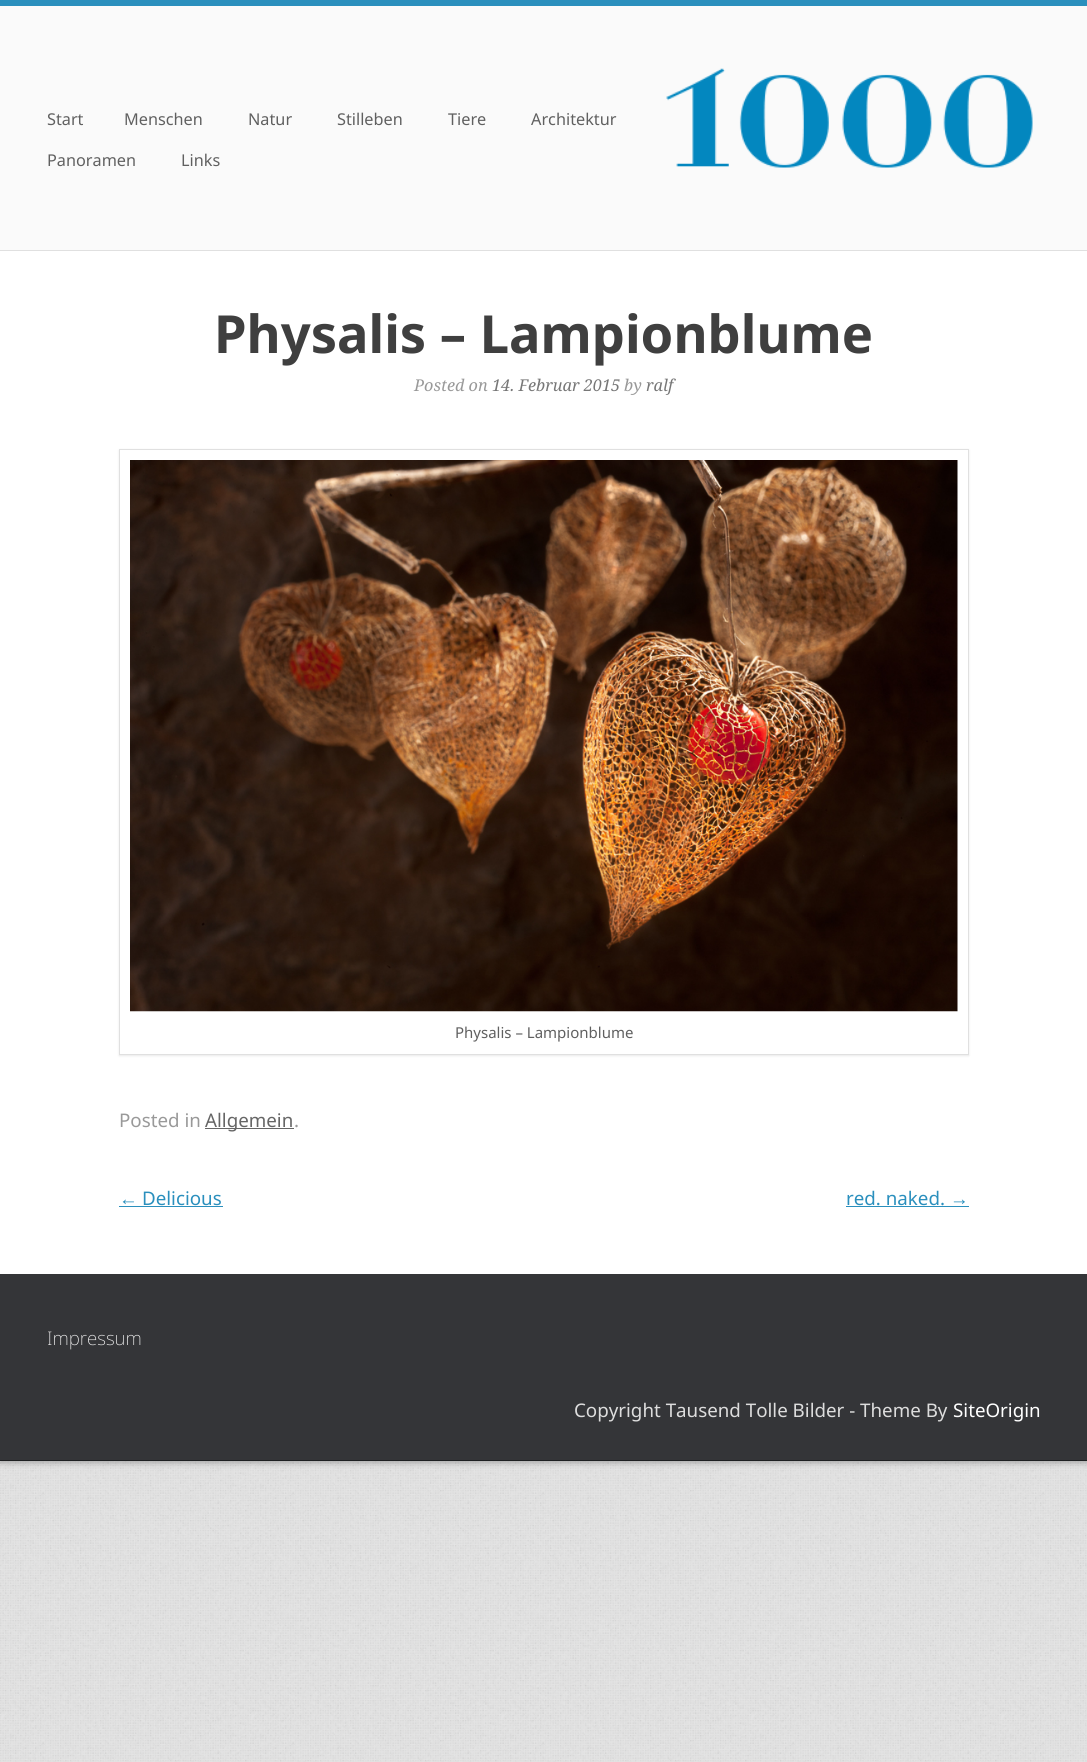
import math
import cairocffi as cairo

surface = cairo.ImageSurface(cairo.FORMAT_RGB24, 1087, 1762)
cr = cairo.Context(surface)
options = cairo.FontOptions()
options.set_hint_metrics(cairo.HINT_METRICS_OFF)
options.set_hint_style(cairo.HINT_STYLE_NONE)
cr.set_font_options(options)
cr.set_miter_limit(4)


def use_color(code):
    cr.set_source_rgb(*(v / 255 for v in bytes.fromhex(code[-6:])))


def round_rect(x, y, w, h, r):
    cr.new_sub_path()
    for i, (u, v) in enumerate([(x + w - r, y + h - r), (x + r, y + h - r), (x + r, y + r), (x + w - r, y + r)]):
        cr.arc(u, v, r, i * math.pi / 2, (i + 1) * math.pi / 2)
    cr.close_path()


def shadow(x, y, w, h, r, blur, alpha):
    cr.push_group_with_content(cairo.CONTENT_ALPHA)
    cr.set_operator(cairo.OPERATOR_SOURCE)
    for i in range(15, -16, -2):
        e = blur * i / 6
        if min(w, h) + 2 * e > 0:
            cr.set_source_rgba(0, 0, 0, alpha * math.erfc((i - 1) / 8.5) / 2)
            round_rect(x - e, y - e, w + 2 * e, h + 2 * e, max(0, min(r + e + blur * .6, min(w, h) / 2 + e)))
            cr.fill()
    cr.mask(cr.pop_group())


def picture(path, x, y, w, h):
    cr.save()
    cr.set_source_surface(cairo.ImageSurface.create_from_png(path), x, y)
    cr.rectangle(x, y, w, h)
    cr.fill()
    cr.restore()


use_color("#ffffff")
cr.paint()
picture("img1.png", 0, 1461, 1087, 301)
use_color("#000000")
shadow(0, 1, 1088, 1462, 0, 3, 0.25)
use_color("#ffffff")
cr.rectangle(0, 251, 1087, 1023)
cr.fill()
use_color("#2a8fbd")
cr.rectangle(0, 0, 1087, 6)
cr.fill()
use_color("#fafafa")
cr.rectangle(0, 6, 1087, 244)
cr.fill()
use_color("#e0e0e0")
cr.rectangle(0, 250, 1087, 1)
cr.fill()
cr.select_font_face("Noto Sans")
cr.set_font_size(16.25)
use_color("#606060")
cr.move_to(47, 125)
cr.show_text("Start")
cr.move_to(124, 125)
cr.show_text("Menschen")
cr.move_to(248, 125)
cr.show_text("Natur")
cr.move_to(337, 125)
cr.show_text("Stilleben")
cr.move_to(448, 125)
cr.show_text("Tiere")
cr.move_to(531, 125)
cr.show_text("Architektur")
cr.move_to(47, 166)
cr.show_text("Panoramen")
cr.move_to(181, 166)
cr.show_text("Links")
picture("img2.png", 666, 68, 367, 100)
cr.select_font_face("Noto Sans", cairo.FONT_SLANT_NORMAL, cairo.FONT_WEIGHT_BOLD)
cr.set_font_size(52.5)
use_color("#3f3f3f")
cr.move_to(214, 353)
cr.show_text("Physalis – Lampionblume")
cr.select_font_face("Noto Serif", cairo.FONT_SLANT_ITALIC)
cr.set_font_size(16.25)
use_color("#999999")
cr.move_to(414, 391)
cr.show_text("Posted on")
use_color("#777777")
cr.move_to(492, 391)
cr.show_text("14. Februar 2015")
use_color("#999999")
cr.move_to(624, 391)
cr.show_text("by")
use_color("#777777")
cr.move_to(646, 391)
cr.show_text("ralf")
cr.save()
cr.set_fill_rule(cairo.FILL_RULE_EVEN_ODD)
cr.new_path()
cr.move_to(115, 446)
cr.line_to(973, 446)
cr.line_to(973, 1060)
cr.line_to(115, 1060)
cr.close_path()
cr.move_to(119, 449)
cr.line_to(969, 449)
cr.line_to(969, 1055)
cr.line_to(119, 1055)
cr.close_path()
cr.clip()
use_color("#000000")
shadow(119, 450, 850, 606, 0, 1, 0.09)
cr.restore()
cr.rectangle(119.5, 449.5, 849, 605)
use_color("#e0e0e0")
cr.set_line_width(1)
cr.stroke()
picture("img3.png", 130, 460, 828, 552)
cr.select_font_face("Noto Sans")
cr.set_font_size(15)
use_color("#606060")
cr.move_to(455, 1038)
cr.show_text("Physalis – Lampionblume")
cr.set_font_size(18.75)
use_color("#999999")
cr.move_to(119, 1127)
cr.show_text("Posted in")
use_color("#666666")
cr.rectangle(205, 1128, 89, 1)
cr.fill()
cr.move_to(205, 1127)
cr.show_text("Allgemein")
use_color("#999999")
cr.move_to(294, 1127)
cr.show_text(".")
cr.select_font_face("Liberation Sans")
use_color("#2a8fbd")
cr.move_to(119, 1205)
cr.show_text("←")
cr.rectangle(119, 1206, 104, 1)
cr.fill()
cr.select_font_face("Noto Sans")
cr.move_to(142, 1205)
cr.show_text("Delicious")
cr.move_to(846, 1205)
cr.show_text("red. naked.")
cr.select_font_face("Liberation Sans")
cr.move_to(950, 1205)
cr.show_text("→")
cr.rectangle(846, 1206, 123, 1)
cr.fill()
use_color("#343538")
cr.rectangle(0, 1274, 1087, 186)
cr.fill()
use_color("#1e2022")
cr.rectangle(0, 1460, 1087, 1)
cr.fill()
cr.select_font_face("Noto Sans ExtraLight")
use_color("#eeeeee")
cr.move_to(47, 1345)
cr.show_text("Impressum")
cr.select_font_face("Noto Sans")
use_color("#dddddd")
cr.move_to(574, 1417)
cr.show_text("Copyright Tausend Tolle Bilder - Theme By")
use_color("#ffffff")
cr.move_to(953, 1417)
cr.show_text("SiteOrigin")
surface.write_to_png("result.png")
